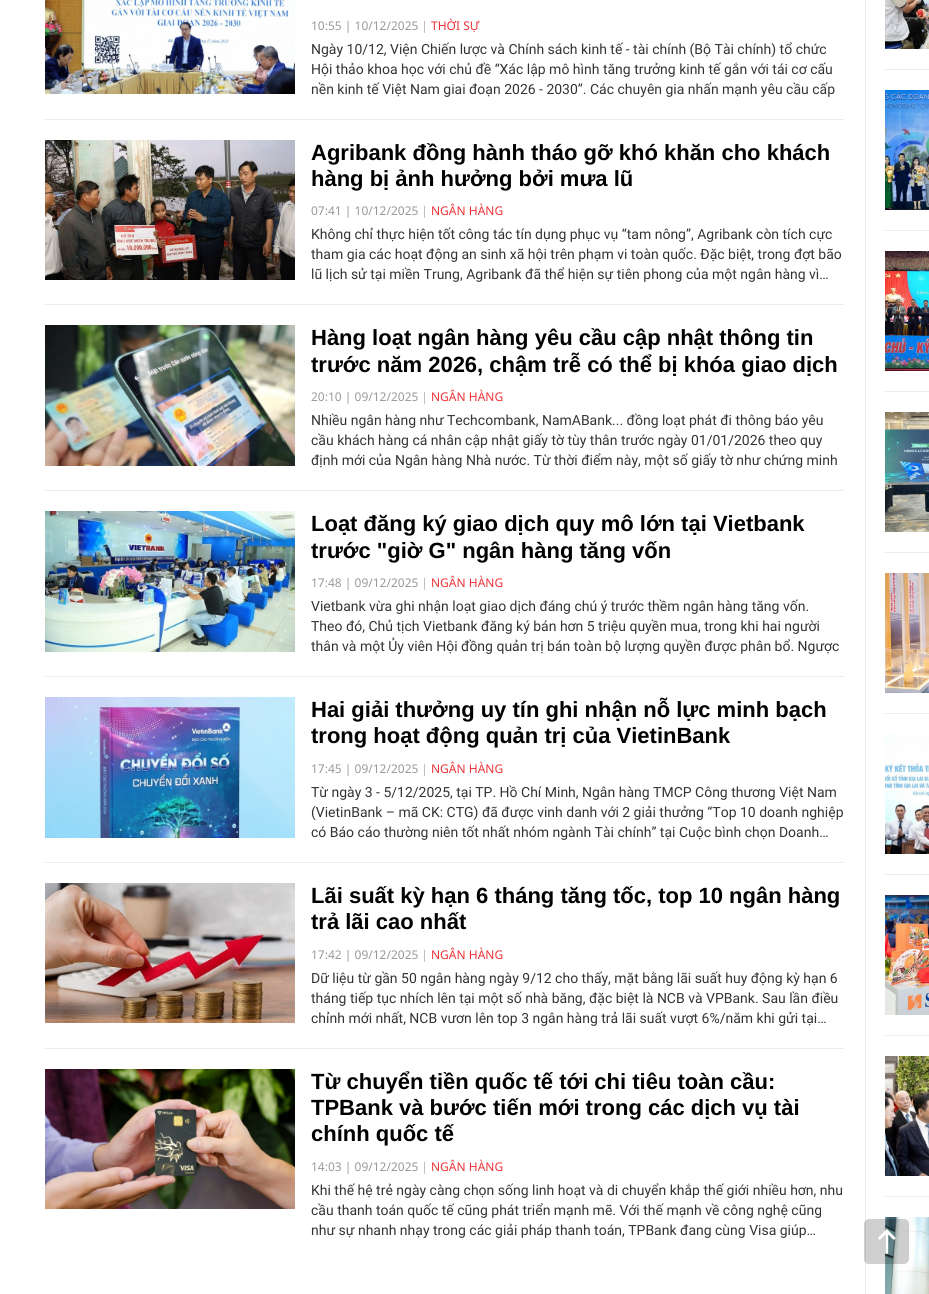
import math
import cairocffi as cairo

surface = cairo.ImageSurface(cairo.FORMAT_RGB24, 929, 1294)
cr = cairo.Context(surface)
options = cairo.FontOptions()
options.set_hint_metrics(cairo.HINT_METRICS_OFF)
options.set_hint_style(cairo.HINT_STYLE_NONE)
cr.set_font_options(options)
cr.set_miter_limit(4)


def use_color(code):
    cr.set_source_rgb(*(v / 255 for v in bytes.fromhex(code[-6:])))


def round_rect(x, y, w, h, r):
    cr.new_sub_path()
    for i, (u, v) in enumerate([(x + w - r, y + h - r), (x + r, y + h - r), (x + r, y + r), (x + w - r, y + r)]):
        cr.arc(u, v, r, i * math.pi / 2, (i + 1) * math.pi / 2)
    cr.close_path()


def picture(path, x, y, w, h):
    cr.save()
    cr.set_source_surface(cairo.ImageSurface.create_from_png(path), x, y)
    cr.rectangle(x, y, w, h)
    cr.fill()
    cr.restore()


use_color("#ffffff")
cr.paint()
use_color("#ebebeb")
cr.rectangle(865, 0, 1, 1294)
cr.fill()
picture("img1.png", 45, 0, 250, 94)
cr.select_font_face("Noto Sans")
cr.set_font_size(12)
use_color("#999999")
cr.move_to(311, 30)
cr.show_text("10:55 | 10/12/2025 |")
use_color("#ed3237")
cr.move_to(431, 30)
cr.show_text("THỜI SỰ")
cr.select_font_face("Roboto")
cr.set_font_size(14)
use_color("#333333")
cr.move_to(311, 54)
cr.show_text("Ngày 10/12, Viện Chiến lược và Chính sách kinh tế - tài chính (Bộ Tài chính) tổ chức")
cr.move_to(311, 74)
cr.show_text("Hội thảo khoa học với chủ đề “Xác lập mô hình tăng trưởng kinh tế gắn với tái cơ cấu")
cr.move_to(311, 94)
cr.show_text("nền kinh tế Việt Nam giai đoạn 2026 - 2030”. Các chuyên gia nhấn mạnh yêu cầu cấp")
use_color("#ebebeb")
cr.rectangle(45, 119, 799, 1)
cr.fill()
picture("img2.png", 45, 140, 250, 140)
cr.select_font_face("Liberation Sans", cairo.FONT_SLANT_NORMAL, cairo.FONT_WEIGHT_BOLD)
cr.set_font_size(22)
use_color("#000000")
cr.move_to(311, 160)
cr.show_text("Agribank đồng hành tháo gỡ khó khăn cho khách")
cr.move_to(311, 186)
cr.show_text("hàng bị ảnh hưởng bởi mưa lũ")
cr.select_font_face("Noto Sans")
cr.set_font_size(12)
use_color("#999999")
cr.move_to(311, 215)
cr.show_text("07:41 | 10/12/2025 |")
use_color("#ed3237")
cr.move_to(431, 215)
cr.show_text("NGÂN HÀNG")
cr.select_font_face("Roboto")
cr.set_font_size(14)
use_color("#333333")
cr.move_to(311, 239)
cr.show_text("Không chỉ thực hiện tốt công tác tín dụng phục vụ “tam nông”, Agribank còn tích cực")
cr.move_to(311, 259)
cr.show_text("tham gia các hoạt động an sinh xã hội trên phạm vi toàn quốc. Đặc biệt, trong đợt bão")
cr.move_to(311, 279)
cr.show_text("lũ lịch sử tại miền Trung, Agribank đã thể hiện sự tiên phong của một ngân hàng vì…")
use_color("#ebebeb")
cr.rectangle(45, 304, 799, 1)
cr.fill()
picture("img3.png", 45, 325, 250, 141)
cr.select_font_face("Liberation Sans", cairo.FONT_SLANT_NORMAL, cairo.FONT_WEIGHT_BOLD)
cr.set_font_size(22)
use_color("#000000")
cr.move_to(311, 345)
cr.show_text("Hàng loạt ngân hàng yêu cầu cập nhật thông tin")
cr.move_to(311, 372)
cr.show_text("trước năm 2026, chậm trễ có thể bị khóa giao dịch")
cr.select_font_face("Noto Sans")
cr.set_font_size(12)
use_color("#999999")
cr.move_to(311, 401)
cr.show_text("20:10 | 09/12/2025 |")
use_color("#ed3237")
cr.move_to(431, 401)
cr.show_text("NGÂN HÀNG")
cr.select_font_face("Roboto")
cr.set_font_size(14)
use_color("#333333")
cr.move_to(311, 425)
cr.show_text("Nhiều ngân hàng như Techcombank, NamABank... đồng loạt phát đi thông báo yêu")
cr.move_to(311, 445)
cr.show_text("cầu khách hàng cá nhân cập nhật giấy tờ tùy thân trước ngày 01/01/2026 theo quy")
cr.move_to(311, 465)
cr.show_text("định mới của Ngân hàng Nhà nước. Từ thời điểm này, một số giấy tờ như chứng minh")
use_color("#ebebeb")
cr.rectangle(45, 490, 799, 1)
cr.fill()
picture("img4.png", 45, 511, 250, 141)
cr.select_font_face("Liberation Sans", cairo.FONT_SLANT_NORMAL, cairo.FONT_WEIGHT_BOLD)
cr.set_font_size(22)
use_color("#000000")
cr.move_to(311, 531)
cr.show_text("Loạt đăng ký giao dịch quy mô lớn tại Vietbank")
cr.move_to(311, 558)
cr.show_text("trước \"giờ G\" ngân hàng tăng vốn")
cr.select_font_face("Noto Sans")
cr.set_font_size(12)
use_color("#999999")
cr.move_to(311, 587)
cr.show_text("17:48 | 09/12/2025 |")
use_color("#ed3237")
cr.move_to(431, 587)
cr.show_text("NGÂN HÀNG")
cr.select_font_face("Roboto")
cr.set_font_size(14)
use_color("#333333")
cr.move_to(311, 611)
cr.show_text("Vietbank vừa ghi nhận loạt giao dịch đáng chú ý trước thềm ngân hàng tăng vốn.")
cr.move_to(311, 631)
cr.show_text("Theo đó, Chủ tịch Vietbank đăng ký bán hơn 5 triệu quyền mua, trong khi hai người")
cr.move_to(311, 651)
cr.show_text("thân và một Ủy viên Hội đồng quản trị bán toàn bộ lượng quyền được phân bổ. Ngược")
use_color("#ebebeb")
cr.rectangle(45, 676, 799, 1)
cr.fill()
picture("img5.png", 45, 697, 250, 141)
cr.select_font_face("Liberation Sans", cairo.FONT_SLANT_NORMAL, cairo.FONT_WEIGHT_BOLD)
cr.set_font_size(22)
use_color("#000000")
cr.move_to(311, 717)
cr.show_text("Hai giải thưởng uy tín ghi nhận nỗ lực minh bạch")
cr.move_to(311, 743)
cr.show_text("trong hoạt động quản trị của VietinBank")
cr.select_font_face("Noto Sans")
cr.set_font_size(12)
use_color("#999999")
cr.move_to(311, 773)
cr.show_text("17:45 | 09/12/2025 |")
use_color("#ed3237")
cr.move_to(431, 773)
cr.show_text("NGÂN HÀNG")
cr.select_font_face("Roboto")
cr.set_font_size(14)
use_color("#333333")
cr.move_to(311, 797)
cr.show_text("Từ ngày 3 - 5/12/2025, tại TP. Hồ Chí Minh, Ngân hàng TMCP Công thương Việt Nam")
cr.move_to(311, 817)
cr.show_text("(VietinBank – mã CK: CTG) đã được vinh danh với 2 giải thưởng “Top 10 doanh nghiệp")
cr.move_to(311, 837)
cr.show_text("có Báo cáo thường niên tốt nhất nhóm ngành Tài chính” tại Cuộc bình chọn Doanh…")
use_color("#ebebeb")
cr.rectangle(45, 862, 799, 1)
cr.fill()
picture("img6.png", 45, 883, 250, 140)
cr.select_font_face("Liberation Sans", cairo.FONT_SLANT_NORMAL, cairo.FONT_WEIGHT_BOLD)
cr.set_font_size(22)
use_color("#000000")
cr.move_to(311, 903)
cr.show_text("Lãi suất kỳ hạn 6 tháng tăng tốc, top 10 ngân hàng")
cr.move_to(311, 929)
cr.show_text("trả lãi cao nhất")
cr.select_font_face("Noto Sans")
cr.set_font_size(12)
use_color("#999999")
cr.move_to(311, 959)
cr.show_text("17:42 | 09/12/2025 |")
use_color("#ed3237")
cr.move_to(431, 959)
cr.show_text("NGÂN HÀNG")
cr.select_font_face("Roboto")
cr.set_font_size(14)
use_color("#333333")
cr.move_to(311, 983)
cr.show_text("Dữ liệu từ gần 50 ngân hàng ngày 9/12 cho thấy, mặt bằng lãi suất huy động kỳ hạn 6")
cr.move_to(311, 1003)
cr.show_text("tháng tiếp tục nhích lên tại một số nhà băng, đặc biệt là NCB và VPBank. Sau lần điều")
cr.move_to(311, 1023)
cr.show_text("chỉnh mới nhất, NCB vươn lên top 3 ngân hàng trả lãi suất vượt 6%/năm khi gửi tại…")
use_color("#ebebeb")
cr.rectangle(45, 1048, 799, 1)
cr.fill()
picture("img7.png", 45, 1069, 250, 140)
cr.select_font_face("Liberation Sans", cairo.FONT_SLANT_NORMAL, cairo.FONT_WEIGHT_BOLD)
cr.set_font_size(22)
use_color("#000000")
cr.move_to(311, 1089)
cr.show_text("Từ chuyển tiền quốc tế tới chi tiêu toàn cầu:")
cr.move_to(311, 1115)
cr.show_text("TPBank và bước tiến mới trong các dịch vụ tài")
cr.move_to(311, 1141)
cr.show_text("chính quốc tế")
cr.select_font_face("Noto Sans")
cr.set_font_size(12)
use_color("#999999")
cr.move_to(311, 1171)
cr.show_text("14:03 | 09/12/2025 |")
use_color("#ed3237")
cr.move_to(431, 1171)
cr.show_text("NGÂN HÀNG")
cr.select_font_face("Roboto")
cr.set_font_size(14)
use_color("#333333")
cr.move_to(311, 1195)
cr.show_text("Khi thế hệ trẻ ngày càng chọn sống linh hoạt và di chuyển khắp thế giới nhiều hơn, nhu")
cr.move_to(311, 1215)
cr.show_text("cầu thanh toán quốc tế cũng phát triển mạnh mẽ. Với thế mạnh về công nghệ cũng")
cr.move_to(311, 1235)
cr.show_text("như sự nhanh nhạy trong các giải pháp thanh toán, TPBank đang cùng Visa giúp…")
picture("img8.png", 885, 0, 44, 49)
use_color("#ebebeb")
cr.rectangle(885, 69, 44, 1)
cr.fill()
picture("img9.png", 885, 90, 44, 120)
cr.rectangle(885, 230, 44, 1)
cr.fill()
picture("img10.png", 885, 251, 44, 120)
cr.rectangle(885, 391, 44, 1)
cr.fill()
picture("img11.png", 885, 412, 44, 120)
cr.rectangle(885, 552, 44, 1)
cr.fill()
picture("img12.png", 885, 573, 44, 120)
cr.rectangle(885, 713, 44, 1)
cr.fill()
picture("img13.png", 885, 734, 44, 120)
cr.rectangle(885, 874, 44, 1)
cr.fill()
picture("img14.png", 885, 895, 44, 120)
cr.rectangle(885, 1035, 44, 1)
cr.fill()
picture("img15.png", 885, 1056, 44, 120)
cr.rectangle(885, 1196, 44, 1)
cr.fill()
picture("img16.png", 885, 1217, 44, 77)
cr.set_source_rgba(0, 0, 0, 0.19)
round_rect(864, 1219, 45, 45, 5)
cr.fill()
picture("img17.png", 878, 1229, 18, 26)
surface.write_to_png("result.png")
